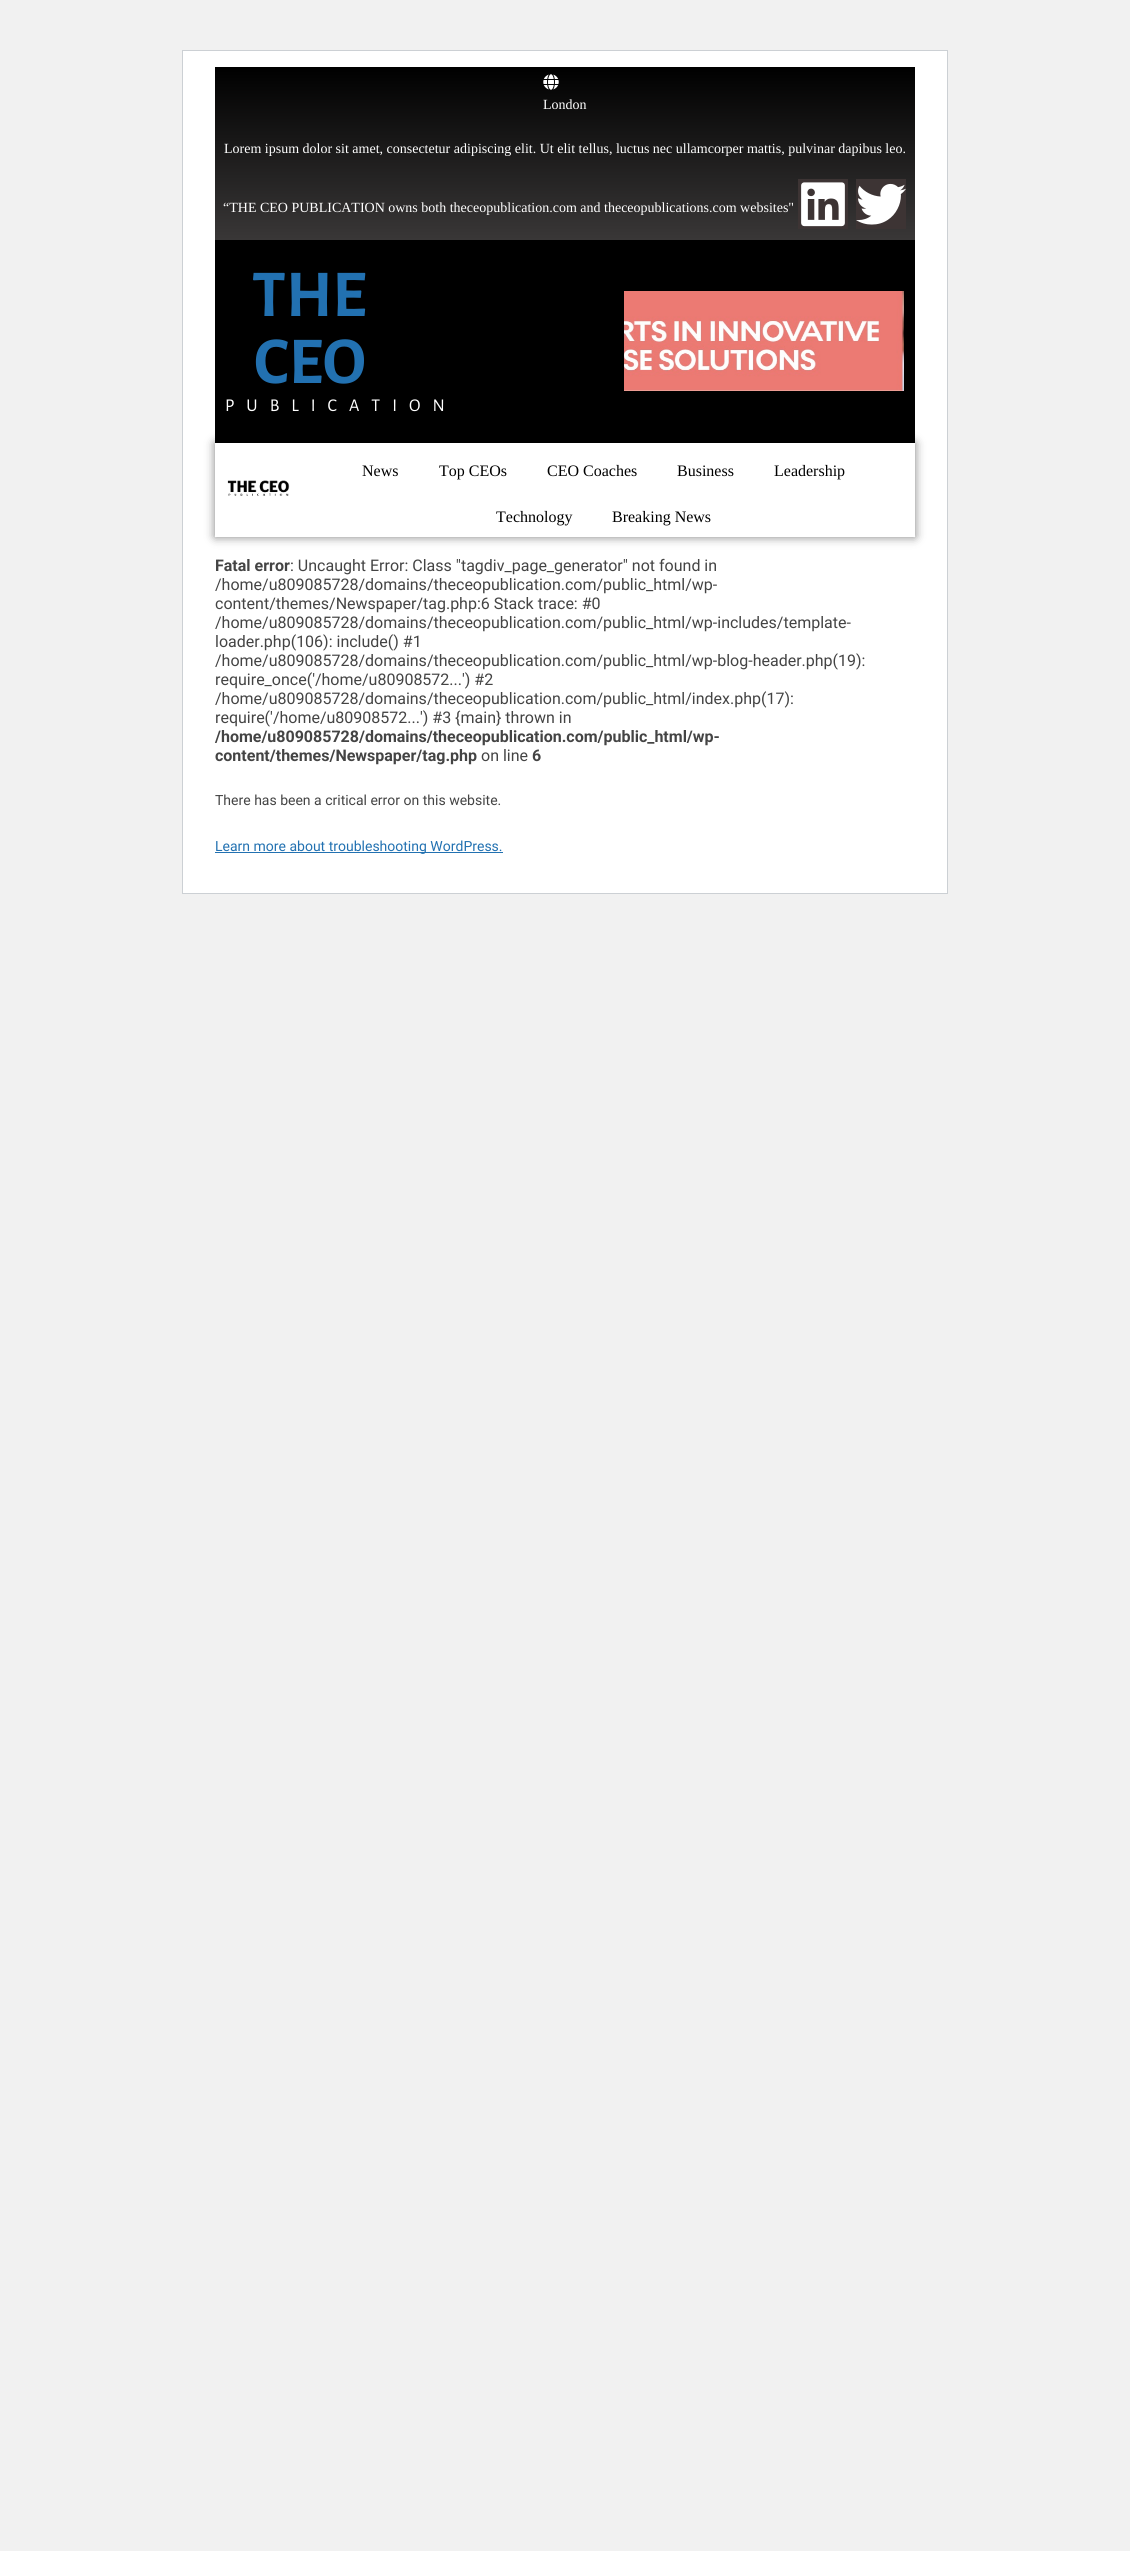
import math
import cairocffi as cairo

surface = cairo.ImageSurface(cairo.FORMAT_RGB24, 1130, 2551)
cr = cairo.Context(surface)
options = cairo.FontOptions()
options.set_hint_metrics(cairo.HINT_METRICS_OFF)
options.set_hint_style(cairo.HINT_STYLE_NONE)
cr.set_font_options(options)
cr.set_miter_limit(4)


def use_color(code):
    cr.set_source_rgb(*(v / 255 for v in bytes.fromhex(code[-6:])))


def spaced_text(x, y, s, letter, word):
    cr.move_to(x, y)
    for ch in s:
        cr.show_text(ch)
        cr.rel_move_to(letter + word * (ch == ' '), 0)


def round_rect(x, y, w, h, r):
    cr.new_sub_path()
    for i, (u, v) in enumerate([(x + w - r, y + h - r), (x + r, y + h - r), (x + r, y + r), (x + w - r, y + r)]):
        cr.arc(u, v, r, i * math.pi / 2, (i + 1) * math.pi / 2)
    cr.close_path()


def shadow(x, y, w, h, r, blur, alpha):
    cr.push_group_with_content(cairo.CONTENT_ALPHA)
    cr.set_operator(cairo.OPERATOR_SOURCE)
    for i in range(15, -16, -2):
        e = blur * i / 6
        if min(w, h) + 2 * e > 0:
            cr.set_source_rgba(0, 0, 0, alpha * math.erfc((i - 1) / 8.5) / 2)
            round_rect(x - e, y - e, w + 2 * e, h + 2 * e, max(0, min(r + e + blur * .6, min(w, h) / 2 + e)))
            cr.fill()
    cr.mask(cr.pop_group())


def picture(path, x, y, w, h):
    cr.save()
    cr.set_source_surface(cairo.ImageSurface.create_from_png(path), x, y)
    cr.rectangle(x, y, w, h)
    cr.fill()
    cr.restore()


use_color("#f1f1f1")
cr.paint()
use_color("#ffffff")
cr.rectangle(182.5, 50.5, 765, 843)
cr.fill_preserve()
use_color("#ccd0d4")
cr.set_line_width(1)
cr.stroke()
gradient = cairo.LinearGradient(565, 67, 565, 240)
gradient.add_color_stop_rgba(0, 0, 0, 0, 1)
gradient.add_color_stop_rgba(1, 0.224, 0.216, 0.216, 1)
cr.set_source(gradient)
cr.rectangle(215, 67, 700, 173)
cr.fill()
picture("img1.png", 543, 74, 16, 16)
cr.select_font_face("Liberation Serif")
cr.set_font_size(14)
use_color("#ffffff")
cr.move_to(543, 109)
cr.show_text("London")
cr.move_to(224, 153)
cr.show_text("Lorem ipsum dolor sit amet, consectetur adipiscing elit. Ut elit tellus, luctus nec ullamcorper mattis, pulvinar dapibus leo.")
cr.move_to(223, 212)
cr.show_text("“THE CEO PUBLICATION owns both theceopublication.com and theceopublications.com websites\"")
use_color("#3d3434")
cr.rectangle(798, 179, 50, 50)
cr.fill()
picture("img2.png", 801, 182, 44, 45)
cr.rectangle(856, 179, 50, 50)
cr.fill()
picture("img3.png", 856, 183, 50, 42)
use_color("#000000")
cr.rectangle(215, 240, 700, 203)
cr.fill()
cr.select_font_face("Alegreya Sans", cairo.FONT_SLANT_NORMAL, cairo.FONT_WEIGHT_BOLD)
cr.set_font_size(67)
use_color("#2271b1")
cr.move_to(252, 316)
cr.show_text("THE")
cr.move_to(254, 383)
cr.show_text("CEO")
cr.select_font_face("Alegreya Sans")
cr.set_font_size(18)
use_color("#ffffff")
spaced_text(225, 411, "PUBLICATION", 12, 0)
picture("img4.png", 624, 291, 280, 100)
use_color("#000000")
shadow(215, 443, 700, 94, 0, 5, 0.5)
use_color("#ffffff")
cr.rectangle(215, 443, 700, 94)
cr.fill()
picture("img5.png", 227, 480, 63, 16)
cr.select_font_face("Liberation Serif")
cr.set_font_size(16)
use_color("#000000")
cr.move_to(362, 476)
cr.show_text("News")
cr.move_to(439, 476)
cr.show_text("Top CEOs")
cr.move_to(547, 476)
cr.show_text("CEO Coaches")
cr.move_to(677, 476)
cr.show_text("Business")
cr.move_to(774, 476)
cr.show_text("Leadership")
cr.move_to(496, 522)
cr.show_text("Technology")
cr.move_to(612, 522)
cr.show_text("Breaking News")
cr.select_font_face("Roboto", cairo.FONT_SLANT_NORMAL, cairo.FONT_WEIGHT_BOLD)
use_color("#444444")
cr.move_to(215, 571)
cr.show_text("Fatal error")
cr.select_font_face("Roboto")
cr.move_to(290, 571)
cr.show_text(": Uncaught Error: Class \"tagdiv_page_generator\" not found in")
cr.move_to(215, 590)
cr.show_text("/home/u809085728/domains/theceopublication.com/public_html/wp-")
cr.move_to(215, 609)
cr.show_text("content/themes/Newspaper/tag.php:6 Stack trace: #0")
cr.move_to(215, 628)
cr.show_text("/home/u809085728/domains/theceopublication.com/public_html/wp-includes/template-")
cr.move_to(215, 647)
cr.show_text("loader.php(106): include() #1")
cr.move_to(215, 666)
cr.show_text("/home/u809085728/domains/theceopublication.com/public_html/wp-blog-header.php(19):")
cr.move_to(215, 685)
cr.show_text("require_once('/home/u80908572...') #2")
cr.move_to(215, 704)
cr.show_text("/home/u809085728/domains/theceopublication.com/public_html/index.php(17):")
cr.move_to(215, 723)
cr.show_text("require('/home/u80908572...') #3 {main} thrown in")
cr.select_font_face("Roboto", cairo.FONT_SLANT_NORMAL, cairo.FONT_WEIGHT_BOLD)
cr.move_to(215, 742)
cr.show_text("/home/u809085728/domains/theceopublication.com/public_html/wp-")
cr.move_to(215, 761)
cr.show_text("content/themes/Newspaper/tag.php")
cr.select_font_face("Roboto")
cr.move_to(481, 761)
cr.show_text("on line")
cr.select_font_face("Roboto", cairo.FONT_SLANT_NORMAL, cairo.FONT_WEIGHT_BOLD)
cr.move_to(532, 761)
cr.show_text("6")
cr.select_font_face("Roboto")
cr.set_font_size(14)
cr.move_to(215, 805)
cr.show_text("There has been a critical error on this website.")
use_color("#2271b1")
cr.rectangle(215, 852, 288, 1)
cr.fill()
cr.move_to(215, 851)
cr.show_text("Learn more about troubleshooting WordPress.")
surface.write_to_png("result.png")
